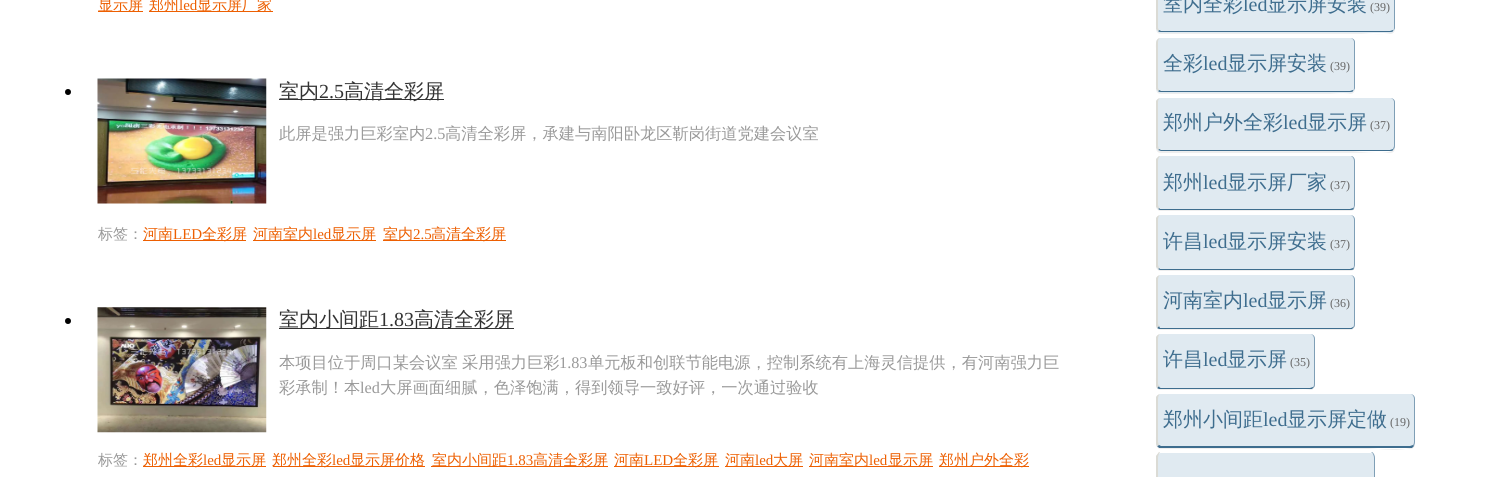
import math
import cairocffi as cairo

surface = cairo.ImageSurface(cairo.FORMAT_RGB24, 1498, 477)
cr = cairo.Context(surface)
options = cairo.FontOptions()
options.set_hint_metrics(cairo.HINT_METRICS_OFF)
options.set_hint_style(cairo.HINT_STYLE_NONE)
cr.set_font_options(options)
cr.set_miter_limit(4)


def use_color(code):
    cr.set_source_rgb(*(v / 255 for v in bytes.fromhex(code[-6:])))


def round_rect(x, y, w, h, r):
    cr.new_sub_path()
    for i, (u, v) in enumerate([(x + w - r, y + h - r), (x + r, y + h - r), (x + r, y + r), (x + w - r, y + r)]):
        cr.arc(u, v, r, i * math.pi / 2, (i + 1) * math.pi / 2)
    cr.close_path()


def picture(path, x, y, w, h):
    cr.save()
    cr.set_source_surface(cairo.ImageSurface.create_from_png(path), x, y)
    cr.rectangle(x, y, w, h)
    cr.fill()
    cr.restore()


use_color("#ffffff")
cr.paint()
use_color("#ed5f01")
cr.rectangle(98, 11, 45, 1)
cr.fill()
cr.select_font_face("WenQuanYi Zen Hei Medium")
cr.set_font_size(15)
cr.move_to(98, 10)
cr.show_text("显示屏")
cr.rectangle(149, 11, 124, 1)
cr.fill()
cr.move_to(149, 10)
cr.show_text("郑州")
cr.select_font_face("Liberation Serif")
cr.move_to(179, 10)
cr.show_text("led")
cr.select_font_face("WenQuanYi Zen Hei Medium")
cr.move_to(197, 10)
cr.show_text("显示屏厂家")
use_color("#000000")
cr.new_path()
cr.arc(68, 92, 3, 0, 2 * math.pi)
cr.fill()
picture("img1.png", 97, 78, 170, 126)
use_color("#333333")
cr.rectangle(279, 99, 165, 1)
cr.fill()
cr.set_font_size(20)
cr.move_to(279, 98)
cr.show_text("室内")
cr.select_font_face("Liberation Serif")
cr.move_to(319, 98)
cr.show_text("2.5")
cr.select_font_face("WenQuanYi Zen Hei Medium")
cr.move_to(344, 98)
cr.show_text("高清全彩屏")
cr.set_font_size(16.25)
use_color("#999999")
cr.move_to(279, 139)
cr.show_text("此屏是强力巨彩室内")
cr.select_font_face("Liberation Serif")
cr.move_to(425, 139)
cr.show_text("2.5")
cr.select_font_face("WenQuanYi Zen Hei Medium")
cr.move_to(445, 139)
cr.show_text("高清全彩屏，承建与南阳卧龙区靳岗街道党建会议室")
cr.set_font_size(15)
cr.move_to(98, 239)
cr.show_text("标签：")
use_color("#ed5f01")
cr.rectangle(143, 240, 103, 1)
cr.fill()
cr.move_to(143, 239)
cr.show_text("河南")
cr.select_font_face("Liberation Serif")
cr.move_to(173, 239)
cr.show_text("LED")
cr.select_font_face("WenQuanYi Zen Hei Medium")
cr.move_to(202, 239)
cr.show_text("全彩屏")
cr.rectangle(253, 240, 123, 1)
cr.fill()
cr.move_to(253, 239)
cr.show_text("河南室内")
cr.select_font_face("Liberation Serif")
cr.move_to(313, 239)
cr.show_text("led")
cr.select_font_face("WenQuanYi Zen Hei Medium")
cr.move_to(331, 239)
cr.show_text("显示屏")
cr.rectangle(383, 240, 123, 1)
cr.fill()
cr.move_to(383, 239)
cr.show_text("室内")
cr.select_font_face("Liberation Serif")
cr.move_to(413, 239)
cr.show_text("2.5")
cr.select_font_face("WenQuanYi Zen Hei Medium")
cr.move_to(431, 239)
cr.show_text("高清全彩屏")
use_color("#000000")
cr.new_path()
cr.arc(68, 321, 3, 0, 2 * math.pi)
cr.fill()
picture("img2.png", 97, 307, 170, 126)
use_color("#333333")
cr.rectangle(279, 328, 235, 1)
cr.fill()
cr.set_font_size(20)
cr.move_to(279, 326)
cr.show_text("室内小间距")
cr.select_font_face("Liberation Serif")
cr.move_to(379, 326)
cr.show_text("1.83")
cr.select_font_face("WenQuanYi Zen Hei Medium")
cr.move_to(414, 326)
cr.show_text("高清全彩屏")
cr.set_font_size(16.25)
use_color("#999999")
cr.move_to(279, 368)
cr.show_text("本项目位于周口某会议室")
cr.move_to(462, 368)
cr.show_text("采用强力巨彩")
cr.select_font_face("Liberation Serif")
cr.move_to(559, 368)
cr.show_text("1.83")
cr.select_font_face("WenQuanYi Zen Hei Medium")
cr.move_to(588, 368)
cr.show_text("单元板和创联节能电源，控制系统有上海灵信提供，有河南强力巨")
cr.move_to(279, 393)
cr.show_text("彩承制！本")
cr.select_font_face("Liberation Serif")
cr.move_to(360, 393)
cr.show_text("led")
cr.select_font_face("WenQuanYi Zen Hei Medium")
cr.move_to(380, 393)
cr.show_text("大屏画面细腻，色泽饱满，得到领导一致好评，一次通过验收")
cr.set_font_size(15)
cr.move_to(98, 465)
cr.show_text("标签：")
use_color("#ed5f01")
cr.rectangle(143, 466, 123, 1)
cr.fill()
cr.move_to(143, 465)
cr.show_text("郑州全彩")
cr.select_font_face("Liberation Serif")
cr.move_to(203, 465)
cr.show_text("led")
cr.select_font_face("WenQuanYi Zen Hei Medium")
cr.move_to(221, 465)
cr.show_text("显示屏")
cr.rectangle(273, 466, 152, 1)
cr.fill()
cr.move_to(272, 465)
cr.show_text("郑州全彩")
cr.select_font_face("Liberation Serif")
cr.move_to(332, 465)
cr.show_text("led")
cr.select_font_face("WenQuanYi Zen Hei Medium")
cr.move_to(350, 465)
cr.show_text("显示屏价格")
cr.rectangle(431, 466, 177, 1)
cr.fill()
cr.move_to(432, 465)
cr.show_text("室内小间距")
cr.select_font_face("Liberation Serif")
cr.move_to(507, 465)
cr.show_text("1.83")
cr.select_font_face("WenQuanYi Zen Hei Medium")
cr.move_to(533, 465)
cr.show_text("高清全彩屏")
cr.rectangle(614, 466, 105, 1)
cr.fill()
cr.move_to(614, 465)
cr.show_text("河南")
cr.select_font_face("Liberation Serif")
cr.move_to(644, 465)
cr.show_text("LED")
cr.select_font_face("WenQuanYi Zen Hei Medium")
cr.move_to(673, 465)
cr.show_text("全彩屏")
cr.rectangle(725, 466, 78, 1)
cr.fill()
cr.move_to(725, 465)
cr.show_text("河南")
cr.select_font_face("Liberation Serif")
cr.move_to(755, 465)
cr.show_text("led")
cr.select_font_face("WenQuanYi Zen Hei Medium")
cr.move_to(773, 465)
cr.show_text("大屏")
cr.rectangle(809, 466, 124, 1)
cr.fill()
cr.move_to(809, 465)
cr.show_text("河南室内")
cr.select_font_face("Liberation Serif")
cr.move_to(869, 465)
cr.show_text("led")
cr.select_font_face("WenQuanYi Zen Hei Medium")
cr.move_to(888, 465)
cr.show_text("显示屏")
cr.rectangle(939, 466, 90, 1)
cr.fill()
cr.move_to(939, 465)
cr.show_text("郑州户外全彩")
use_color("#eeeeee")
cr.new_path()
cr.move_to(1156, -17)
cr.line_to(1156, 29)
cr.curve_to(1156, 32, 1158, 34, 1161, 34)
cr.line_to(1390, 34)
cr.curve_to(1393, 34, 1395, 32, 1395, 29)
cr.line_to(1395, 28)
cr.curve_to(1395, 39, 1357, 32, 1352, 32)
cr.line_to(1161, 32)
cr.curve_to(1155, 32, 1156, 24, 1156, 20)
cr.close_path()
cr.fill()
use_color("#e0eaf1")
round_rect(1156, -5, 239, 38, 5)
cr.fill()
use_color("#7f9fb6")
cr.new_path()
cr.move_to(1395, 28)
cr.line_to(1395, -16)
cr.curve_to(1395, -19, 1393, -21, 1390, -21)
cr.curve_to(1392, -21, 1394, -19, 1394, -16)
cr.line_to(1394, 28)
cr.curve_to(1394, 29, 1394, 30, 1393, 30)
cr.line_to(1393, 31)
cr.curve_to(1394, 30, 1395, 29, 1395, 28)
cr.close_path()
cr.fill()
use_color("#3e6d8e")
cr.new_path()
cr.move_to(1159, 30)
cr.line_to(1161, 31)
cr.line_to(1390, 31)
cr.line_to(1393, 30)
cr.line_to(1393, 31)
cr.curve_to(1393, 32, 1391, 32, 1390, 32)
cr.line_to(1161, 32)
cr.curve_to(1160, 32, 1159, 32, 1158, 31)
cr.close_path()
cr.fill()
use_color("#dbdbd5")
cr.new_path()
cr.move_to(1161, -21)
cr.curve_to(1159, -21, 1158, -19, 1158, -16)
cr.line_to(1158, 28)
cr.line_to(1159, 30)
cr.line_to(1158, 31)
cr.line_to(1156, 29)
cr.line_to(1156, -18)
cr.curve_to(1157, -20, 1159, -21, 1161, -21)
cr.close_path()
cr.fill()
cr.set_font_size(20)
use_color("#3e6d8e")
cr.move_to(1163, 11)
cr.show_text("室内全彩")
cr.select_font_face("Liberation Serif")
cr.move_to(1243, 11)
cr.show_text("led")
cr.select_font_face("WenQuanYi Zen Hei Medium")
cr.move_to(1267, 11)
cr.show_text("显示屏安装")
cr.select_font_face("Liberation Serif")
cr.set_font_size(12)
use_color("#666666")
cr.move_to(1370, 11)
cr.show_text("(39)")
use_color("#eeeeee")
cr.new_path()
cr.move_to(1156, 42)
cr.line_to(1156, 89)
cr.curve_to(1156, 92, 1158, 94, 1161, 94)
cr.line_to(1350, 94)
cr.curve_to(1353, 94, 1355, 92, 1355, 89)
cr.line_to(1355, 88)
cr.curve_to(1355, 98, 1328, 92, 1319, 92)
cr.line_to(1161, 92)
cr.curve_to(1155, 92, 1156, 84, 1156, 80)
cr.close_path()
cr.fill()
use_color("#e0eaf1")
round_rect(1156, 38, 199, 55, 5)
cr.fill()
use_color("#7f9fb6")
cr.new_path()
cr.move_to(1355, 88)
cr.line_to(1355, 42)
cr.curve_to(1355, 40, 1353, 38, 1350, 38)
cr.curve_to(1352, 38, 1354, 40, 1354, 42)
cr.line_to(1354, 88)
cr.curve_to(1354, 89, 1354, 90, 1353, 90)
cr.line_to(1353, 91)
cr.curve_to(1354, 90, 1355, 89, 1355, 88)
cr.close_path()
cr.fill()
use_color("#3e6d8e")
cr.new_path()
cr.move_to(1159, 90)
cr.line_to(1161, 91)
cr.line_to(1350, 91)
cr.line_to(1353, 90)
cr.line_to(1353, 91)
cr.curve_to(1353, 92, 1351, 92, 1350, 92)
cr.line_to(1161, 92)
cr.curve_to(1160, 92, 1159, 92, 1158, 91)
cr.close_path()
cr.fill()
use_color("#dbdbd5")
cr.new_path()
cr.move_to(1161, 38)
cr.curve_to(1159, 38, 1158, 40, 1158, 42)
cr.line_to(1158, 88)
cr.line_to(1159, 90)
cr.line_to(1158, 91)
cr.line_to(1156, 89)
cr.line_to(1156, 49)
cr.curve_to(1156, 44, 1155, 38, 1161, 38)
cr.close_path()
cr.fill()
cr.select_font_face("WenQuanYi Zen Hei Medium")
cr.set_font_size(20)
use_color("#3e6d8e")
cr.move_to(1163, 70)
cr.show_text("全彩")
cr.select_font_face("Liberation Serif")
cr.move_to(1203, 70)
cr.show_text("led")
cr.select_font_face("WenQuanYi Zen Hei Medium")
cr.move_to(1227, 70)
cr.show_text("显示屏安装")
cr.select_font_face("Liberation Serif")
cr.set_font_size(12)
use_color("#666666")
cr.move_to(1330, 70)
cr.show_text("(39)")
use_color("#eeeeee")
cr.new_path()
cr.move_to(1156, 102)
cr.line_to(1156, 148)
cr.curve_to(1156, 151, 1158, 153, 1161, 153)
cr.line_to(1390, 153)
cr.curve_to(1393, 153, 1395, 151, 1395, 148)
cr.line_to(1395, 146)
cr.curve_to(1395, 158, 1357, 151, 1352, 151)
cr.line_to(1161, 151)
cr.curve_to(1155, 151, 1156, 143, 1156, 139)
cr.close_path()
cr.fill()
use_color("#e0eaf1")
round_rect(1156, 98, 239, 53, 5)
cr.fill()
use_color("#7f9fb6")
cr.new_path()
cr.move_to(1395, 146)
cr.line_to(1395, 102)
cr.curve_to(1395, 100, 1393, 98, 1390, 98)
cr.curve_to(1392, 98, 1394, 100, 1394, 102)
cr.line_to(1394, 146)
cr.curve_to(1394, 147, 1393, 148, 1393, 149)
cr.line_to(1393, 150)
cr.curve_to(1394, 149, 1395, 148, 1395, 146)
cr.close_path()
cr.fill()
use_color("#3e6d8e")
cr.new_path()
cr.move_to(1159, 149)
cr.line_to(1161, 150)
cr.line_to(1390, 150)
cr.line_to(1393, 149)
cr.line_to(1393, 150)
cr.curve_to(1393, 151, 1391, 151, 1390, 151)
cr.line_to(1161, 151)
cr.line_to(1158, 150)
cr.close_path()
cr.fill()
use_color("#dbdbd5")
cr.new_path()
cr.move_to(1161, 98)
cr.curve_to(1159, 98, 1158, 100, 1158, 102)
cr.line_to(1158, 146)
cr.line_to(1159, 149)
cr.line_to(1158, 150)
cr.line_to(1156, 148)
cr.line_to(1156, 101)
cr.curve_to(1157, 99, 1159, 98, 1161, 98)
cr.close_path()
cr.fill()
cr.select_font_face("WenQuanYi Zen Hei Medium")
cr.set_font_size(20)
use_color("#3e6d8e")
cr.move_to(1163, 129)
cr.show_text("郑州户外全彩")
cr.select_font_face("Liberation Serif")
cr.move_to(1283, 129)
cr.show_text("led")
cr.select_font_face("WenQuanYi Zen Hei Medium")
cr.move_to(1307, 129)
cr.show_text("显示屏")
cr.select_font_face("Liberation Serif")
cr.set_font_size(12)
use_color("#666666")
cr.move_to(1370, 129)
cr.show_text("(37)")
use_color("#eeeeee")
cr.new_path()
cr.move_to(1156, 161)
cr.line_to(1156, 206)
cr.curve_to(1156, 209, 1158, 211, 1161, 211)
cr.line_to(1350, 211)
cr.curve_to(1353, 211, 1355, 209, 1355, 206)
cr.line_to(1355, 205)
cr.curve_to(1355, 208, 1353, 210, 1350, 210)
cr.line_to(1161, 210)
cr.curve_to(1158, 210, 1156, 208, 1156, 205)
cr.close_path()
cr.fill()
use_color("#e0eaf1")
round_rect(1156, 156, 199, 54, 5)
cr.fill()
use_color("#7f9fb6")
cr.new_path()
cr.move_to(1353, 208)
cr.curve_to(1354, 207, 1354, 206, 1354, 205)
cr.line_to(1354, 161)
cr.curve_to(1354, 159, 1353, 157, 1351, 156)
cr.line_to(1352, 156)
cr.curve_to(1354, 157, 1355, 159, 1355, 161)
cr.line_to(1355, 205)
cr.curve_to(1355, 206, 1354, 208, 1354, 209)
cr.close_path()
cr.fill()
use_color("#3e6d8e")
cr.new_path()
cr.move_to(1159, 208)
cr.line_to(1160, 209)
cr.line_to(1350, 209)
cr.line_to(1353, 208)
cr.line_to(1354, 209)
cr.curve_to(1353, 210, 1351, 210, 1350, 210)
cr.line_to(1160, 210)
cr.line_to(1158, 209)
cr.close_path()
cr.fill()
use_color("#dbdbd5")
cr.new_path()
cr.move_to(1160, 156)
cr.curve_to(1159, 157, 1158, 159, 1158, 161)
cr.line_to(1158, 205)
cr.line_to(1159, 208)
cr.line_to(1158, 209)
cr.line_to(1156, 207)
cr.line_to(1156, 159)
cr.curve_to(1157, 158, 1158, 157, 1159, 156)
cr.close_path()
cr.fill()
cr.select_font_face("WenQuanYi Zen Hei Medium")
cr.set_font_size(20)
use_color("#3e6d8e")
cr.move_to(1163, 189)
cr.show_text("郑州")
cr.select_font_face("Liberation Serif")
cr.move_to(1203, 189)
cr.show_text("led")
cr.select_font_face("WenQuanYi Zen Hei Medium")
cr.move_to(1227, 189)
cr.show_text("显示屏厂家")
cr.select_font_face("Liberation Serif")
cr.set_font_size(12)
use_color("#666666")
cr.move_to(1330, 189)
cr.show_text("(37)")
use_color("#eeeeee")
cr.new_path()
cr.move_to(1156, 219)
cr.line_to(1156, 266)
cr.curve_to(1156, 269, 1158, 271, 1161, 271)
cr.line_to(1350, 271)
cr.curve_to(1353, 271, 1355, 269, 1355, 266)
cr.line_to(1355, 265)
cr.curve_to(1355, 268, 1353, 270, 1350, 270)
cr.line_to(1161, 270)
cr.curve_to(1158, 270, 1156, 268, 1156, 265)
cr.close_path()
cr.fill()
use_color("#e0eaf1")
round_rect(1156, 215, 199, 55, 5)
cr.fill()
use_color("#7f9fb6")
cr.new_path()
cr.move_to(1355, 220)
cr.curve_to(1355, 217, 1353, 215, 1350, 215)
cr.curve_to(1352, 215, 1354, 217, 1354, 220)
cr.line_to(1354, 265)
cr.curve_to(1354, 266, 1354, 267, 1353, 268)
cr.line_to(1354, 269)
cr.curve_to(1354, 268, 1355, 266, 1355, 265)
cr.close_path()
cr.fill()
use_color("#3e6d8e")
cr.new_path()
cr.move_to(1159, 268)
cr.line_to(1160, 269)
cr.line_to(1350, 269)
cr.line_to(1353, 268)
cr.line_to(1354, 269)
cr.curve_to(1353, 270, 1351, 270, 1350, 270)
cr.line_to(1160, 270)
cr.line_to(1158, 269)
cr.close_path()
cr.fill()
use_color("#dbdbd5")
cr.new_path()
cr.move_to(1161, 215)
cr.curve_to(1159, 215, 1158, 217, 1158, 220)
cr.line_to(1158, 265)
cr.line_to(1159, 268)
cr.line_to(1158, 269)
cr.line_to(1156, 267)
cr.line_to(1156, 218)
cr.curve_to(1157, 216, 1159, 215, 1161, 215)
cr.close_path()
cr.fill()
cr.select_font_face("WenQuanYi Zen Hei Medium")
cr.set_font_size(20)
use_color("#3e6d8e")
cr.move_to(1163, 248)
cr.show_text("许昌")
cr.select_font_face("Liberation Serif")
cr.move_to(1203, 248)
cr.show_text("led")
cr.select_font_face("WenQuanYi Zen Hei Medium")
cr.move_to(1227, 248)
cr.show_text("显示屏安装")
cr.select_font_face("Liberation Serif")
cr.set_font_size(12)
use_color("#666666")
cr.move_to(1330, 248)
cr.show_text("(37)")
use_color("#eeeeee")
cr.new_path()
cr.move_to(1156, 279)
cr.line_to(1156, 325)
cr.curve_to(1156, 328, 1158, 330, 1161, 330)
cr.line_to(1350, 330)
cr.curve_to(1353, 330, 1355, 328, 1355, 325)
cr.line_to(1355, 324)
cr.curve_to(1355, 327, 1353, 329, 1350, 329)
cr.line_to(1161, 329)
cr.curve_to(1158, 329, 1156, 327, 1156, 324)
cr.close_path()
cr.fill()
use_color("#e0eaf1")
round_rect(1156, 275, 199, 54, 5)
cr.fill()
use_color("#7f9fb6")
cr.new_path()
cr.move_to(1355, 280)
cr.curve_to(1355, 277, 1353, 275, 1350, 275)
cr.curve_to(1352, 275, 1354, 277, 1354, 280)
cr.line_to(1354, 324)
cr.curve_to(1354, 325, 1354, 326, 1353, 327)
cr.line_to(1354, 327)
cr.curve_to(1355, 327, 1355, 325, 1355, 324)
cr.close_path()
cr.fill()
use_color("#3e6d8e")
cr.new_path()
cr.move_to(1159, 326)
cr.line_to(1160, 328)
cr.line_to(1161, 328)
cr.line_to(1351, 328)
cr.line_to(1353, 327)
cr.line_to(1354, 327)
cr.line_to(1352, 329)
cr.line_to(1159, 329)
cr.line_to(1157, 328)
cr.close_path()
cr.fill()
use_color("#dbdbd5")
cr.new_path()
cr.move_to(1161, 275)
cr.curve_to(1159, 275, 1158, 277, 1158, 280)
cr.line_to(1158, 324)
cr.line_to(1159, 326)
cr.line_to(1157, 328)
cr.line_to(1156, 326)
cr.line_to(1156, 278)
cr.curve_to(1157, 276, 1159, 275, 1161, 275)
cr.close_path()
cr.fill()
cr.select_font_face("WenQuanYi Zen Hei Medium")
cr.set_font_size(20)
use_color("#3e6d8e")
cr.move_to(1163, 307)
cr.show_text("河南室内")
cr.select_font_face("Liberation Serif")
cr.move_to(1243, 307)
cr.show_text("led")
cr.select_font_face("WenQuanYi Zen Hei Medium")
cr.move_to(1267, 307)
cr.show_text("显示屏")
cr.select_font_face("Liberation Serif")
cr.set_font_size(12)
use_color("#666666")
cr.move_to(1330, 307)
cr.show_text("(36)")
use_color("#eeeeee")
cr.new_path()
cr.move_to(1156, 338)
cr.line_to(1156, 385)
cr.curve_to(1156, 388, 1158, 390, 1161, 390)
cr.line_to(1310, 390)
cr.curve_to(1313, 390, 1315, 388, 1315, 385)
cr.line_to(1315, 384)
cr.curve_to(1315, 393, 1295, 389, 1285, 389)
cr.line_to(1161, 389)
cr.curve_to(1155, 389, 1156, 380, 1156, 376)
cr.close_path()
cr.fill()
use_color("#e0eaf1")
round_rect(1156, 334, 159, 55, 5)
cr.fill()
use_color("#7f9fb6")
cr.new_path()
cr.move_to(1315, 384)
cr.line_to(1315, 339)
cr.curve_to(1315, 336, 1313, 334, 1310, 334)
cr.curve_to(1312, 334, 1314, 336, 1314, 339)
cr.line_to(1314, 384)
cr.curve_to(1314, 385, 1314, 386, 1313, 387)
cr.line_to(1314, 387)
cr.curve_to(1315, 387, 1315, 385, 1315, 384)
cr.close_path()
cr.fill()
use_color("#3e6d8e")
cr.new_path()
cr.move_to(1159, 386)
cr.curve_to(1159, 387, 1160, 388, 1161, 388)
cr.line_to(1310, 388)
cr.line_to(1313, 387)
cr.line_to(1314, 387)
cr.line_to(1312, 389)
cr.line_to(1159, 389)
cr.line_to(1157, 388)
cr.close_path()
cr.fill()
use_color("#dbdbd5")
cr.new_path()
cr.move_to(1161, 334)
cr.curve_to(1159, 334, 1158, 336, 1158, 339)
cr.line_to(1158, 384)
cr.line_to(1159, 386)
cr.line_to(1157, 388)
cr.line_to(1156, 386)
cr.line_to(1156, 337)
cr.curve_to(1157, 335, 1159, 334, 1161, 334)
cr.close_path()
cr.fill()
cr.select_font_face("WenQuanYi Zen Hei Medium")
cr.set_font_size(20)
use_color("#3e6d8e")
cr.move_to(1163, 366)
cr.show_text("许昌")
cr.select_font_face("Liberation Serif")
cr.move_to(1203, 366)
cr.show_text("led")
cr.select_font_face("WenQuanYi Zen Hei Medium")
cr.move_to(1227, 366)
cr.show_text("显示屏")
cr.select_font_face("Liberation Serif")
cr.set_font_size(12)
use_color("#666666")
cr.move_to(1290, 366)
cr.show_text("(35)")
use_color("#eeeeee")
cr.new_path()
cr.move_to(1156, 398)
cr.line_to(1156, 444)
cr.curve_to(1156, 447, 1158, 449, 1161, 449)
cr.line_to(1410, 449)
cr.curve_to(1413, 449, 1415, 447, 1415, 444)
cr.line_to(1415, 442)
cr.curve_to(1415, 455, 1371, 448, 1369, 448)
cr.line_to(1161, 448)
cr.curve_to(1155, 447, 1156, 439, 1156, 435)
cr.close_path()
cr.fill()
use_color("#e0eaf1")
round_rect(1156, 394, 259, 54, 5)
cr.fill()
use_color("#7f9fb6")
cr.new_path()
cr.move_to(1415, 442)
cr.line_to(1415, 399)
cr.curve_to(1415, 396, 1413, 394, 1410, 394)
cr.curve_to(1412, 394, 1414, 396, 1414, 399)
cr.line_to(1414, 442)
cr.curve_to(1414, 444, 1413, 445, 1413, 445)
cr.line_to(1414, 446)
cr.curve_to(1414, 445, 1415, 444, 1415, 442)
cr.close_path()
cr.fill()
use_color("#3e6d8e")
cr.new_path()
cr.move_to(1159, 445)
cr.line_to(1161, 446)
cr.line_to(1410, 446)
cr.line_to(1413, 445)
cr.line_to(1414, 446)
cr.line_to(1412, 448)
cr.line_to(1159, 448)
cr.line_to(1157, 446)
cr.close_path()
cr.fill()
use_color("#dbdbd5")
cr.new_path()
cr.move_to(1161, 394)
cr.curve_to(1159, 394, 1158, 396, 1158, 399)
cr.line_to(1158, 442)
cr.line_to(1159, 445)
cr.line_to(1157, 446)
cr.line_to(1156, 444)
cr.line_to(1156, 397)
cr.curve_to(1157, 395, 1159, 394, 1161, 394)
cr.close_path()
cr.fill()
cr.select_font_face("WenQuanYi Zen Hei Medium")
cr.set_font_size(20)
use_color("#3e6d8e")
cr.move_to(1163, 426)
cr.show_text("郑州小间距")
cr.select_font_face("Liberation Serif")
cr.move_to(1263, 426)
cr.show_text("led")
cr.select_font_face("WenQuanYi Zen Hei Medium")
cr.move_to(1287, 426)
cr.show_text("显示屏定做")
cr.select_font_face("Liberation Serif")
cr.set_font_size(12)
use_color("#666666")
cr.move_to(1390, 426)
cr.show_text("(19)")
use_color("#e0eaf1")
round_rect(1156, 453, 219, 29, 5)
cr.fill()
use_color("#7f9fb6")
cr.new_path()
cr.move_to(1373, 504)
cr.curve_to(1373, 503, 1374, 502, 1374, 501)
cr.line_to(1374, 458)
cr.curve_to(1374, 456, 1373, 453, 1371, 452)
cr.line_to(1372, 452)
cr.curve_to(1374, 453, 1375, 456, 1375, 458)
cr.line_to(1375, 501)
cr.curve_to(1375, 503, 1374, 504, 1373, 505)
cr.close_path()
cr.fill()
use_color("#dbdbd5")
cr.new_path()
cr.move_to(1160, 452)
cr.curve_to(1159, 453, 1158, 456, 1158, 458)
cr.line_to(1158, 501)
cr.line_to(1159, 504)
cr.line_to(1158, 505)
cr.line_to(1156, 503)
cr.line_to(1156, 456)
cr.curve_to(1157, 455, 1158, 453, 1159, 452)
cr.close_path()
cr.fill()
surface.write_to_png("result.png")
